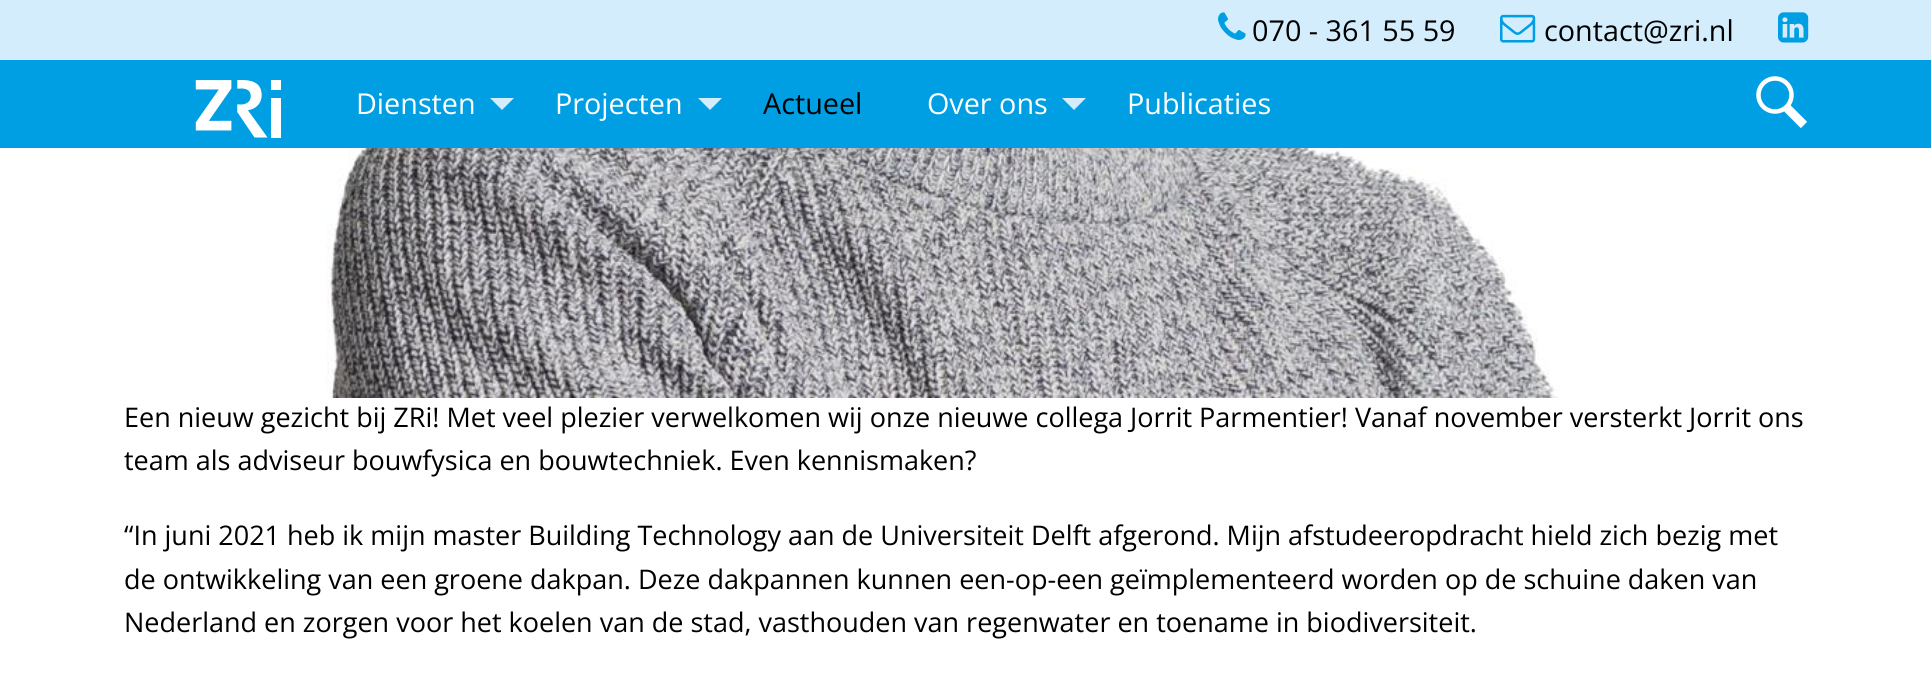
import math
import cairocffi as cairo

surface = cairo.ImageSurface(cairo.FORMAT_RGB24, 1931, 685)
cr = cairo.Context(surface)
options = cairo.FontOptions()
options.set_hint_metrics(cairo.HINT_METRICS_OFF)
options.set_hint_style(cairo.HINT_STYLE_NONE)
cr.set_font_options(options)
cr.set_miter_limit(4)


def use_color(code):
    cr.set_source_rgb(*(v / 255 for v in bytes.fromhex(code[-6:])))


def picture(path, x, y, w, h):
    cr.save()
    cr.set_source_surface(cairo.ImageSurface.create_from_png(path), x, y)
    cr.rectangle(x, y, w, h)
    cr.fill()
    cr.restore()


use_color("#ffffff")
cr.paint()
use_color("#009fe3")
cr.rectangle(0, 60, 1931, 88)
cr.fill()
use_color("#d4edfc")
cr.rectangle(0, 0, 1931, 60)
cr.fill()
picture("img1.png", 1218, 12, 28, 28)
cr.select_font_face("Open Sans")
cr.set_font_size(28.75)
use_color("#000000")
cr.move_to(1252, 41)
cr.show_text("070 - 361 55 59")
picture("img2.png", 1500, 14, 36, 29)
cr.move_to(1544, 41)
cr.show_text("contact@zri.nl")
picture("img3.png", 1778, 12, 31, 31)
picture("img4.png", 195, 80, 86, 58)
use_color("#ffffff")
cr.move_to(356, 114)
cr.show_text("Diensten")
use_color("#d4edfc")
cr.new_path()
cr.move_to(490, 98)
cr.line_to(514, 98)
cr.line_to(502, 110)
cr.close_path()
cr.fill()
use_color("#ffffff")
cr.move_to(555, 114)
cr.show_text("Projecten")
use_color("#d4edfc")
cr.new_path()
cr.move_to(698, 98)
cr.line_to(722, 98)
cr.line_to(710, 110)
cr.close_path()
cr.fill()
use_color("#000000")
cr.move_to(763, 114)
cr.show_text("Actueel")
use_color("#ffffff")
cr.move_to(927, 114)
cr.show_text("Over ons")
use_color("#d4edfc")
cr.new_path()
cr.move_to(1062, 98)
cr.line_to(1086, 98)
cr.line_to(1074, 110)
cr.close_path()
cr.fill()
use_color("#ffffff")
cr.move_to(1127, 114)
cr.show_text("Publicaties")
cr.new_path()
cr.arc(1775, 95, 16.5, 0, 2 * math.pi)
cr.set_line_width(4.5)
cr.stroke()
cr.new_path()
cr.move_to(1786.5, 107.5)
cr.line_to(1804, 125)
cr.set_line_width(8.9)
cr.stroke()
picture("img5.png", 326, 148, 1235, 250)
cr.set_font_size(27)
use_color("#000000")
cr.move_to(124, 427)
cr.show_text("Een nieuw gezicht bij ZRi! Met veel plezier verwelkomen wij onze nieuwe collega Jorrit Parmentier! Vanaf november versterkt Jorrit ons")
cr.move_to(124, 470)
cr.show_text("team als adviseur bouwfysica en bouwtechniek. Even kennismaken?")
cr.move_to(124, 545)
cr.show_text("“In juni 2021 heb ik mijn master Building Technology aan de Universiteit Delft afgerond. Mijn afstudeeropdracht hield zich bezig met")
cr.move_to(124, 589)
cr.show_text("de ontwikkeling van een groene dakpan. Deze dakpannen kunnen een-op-een geïmplementeerd worden op de schuine daken van")
cr.move_to(124, 632)
cr.show_text("Nederland en zorgen voor het koelen van de stad, vasthouden van regenwater en toename in biodiversiteit.")
surface.write_to_png("result.png")
